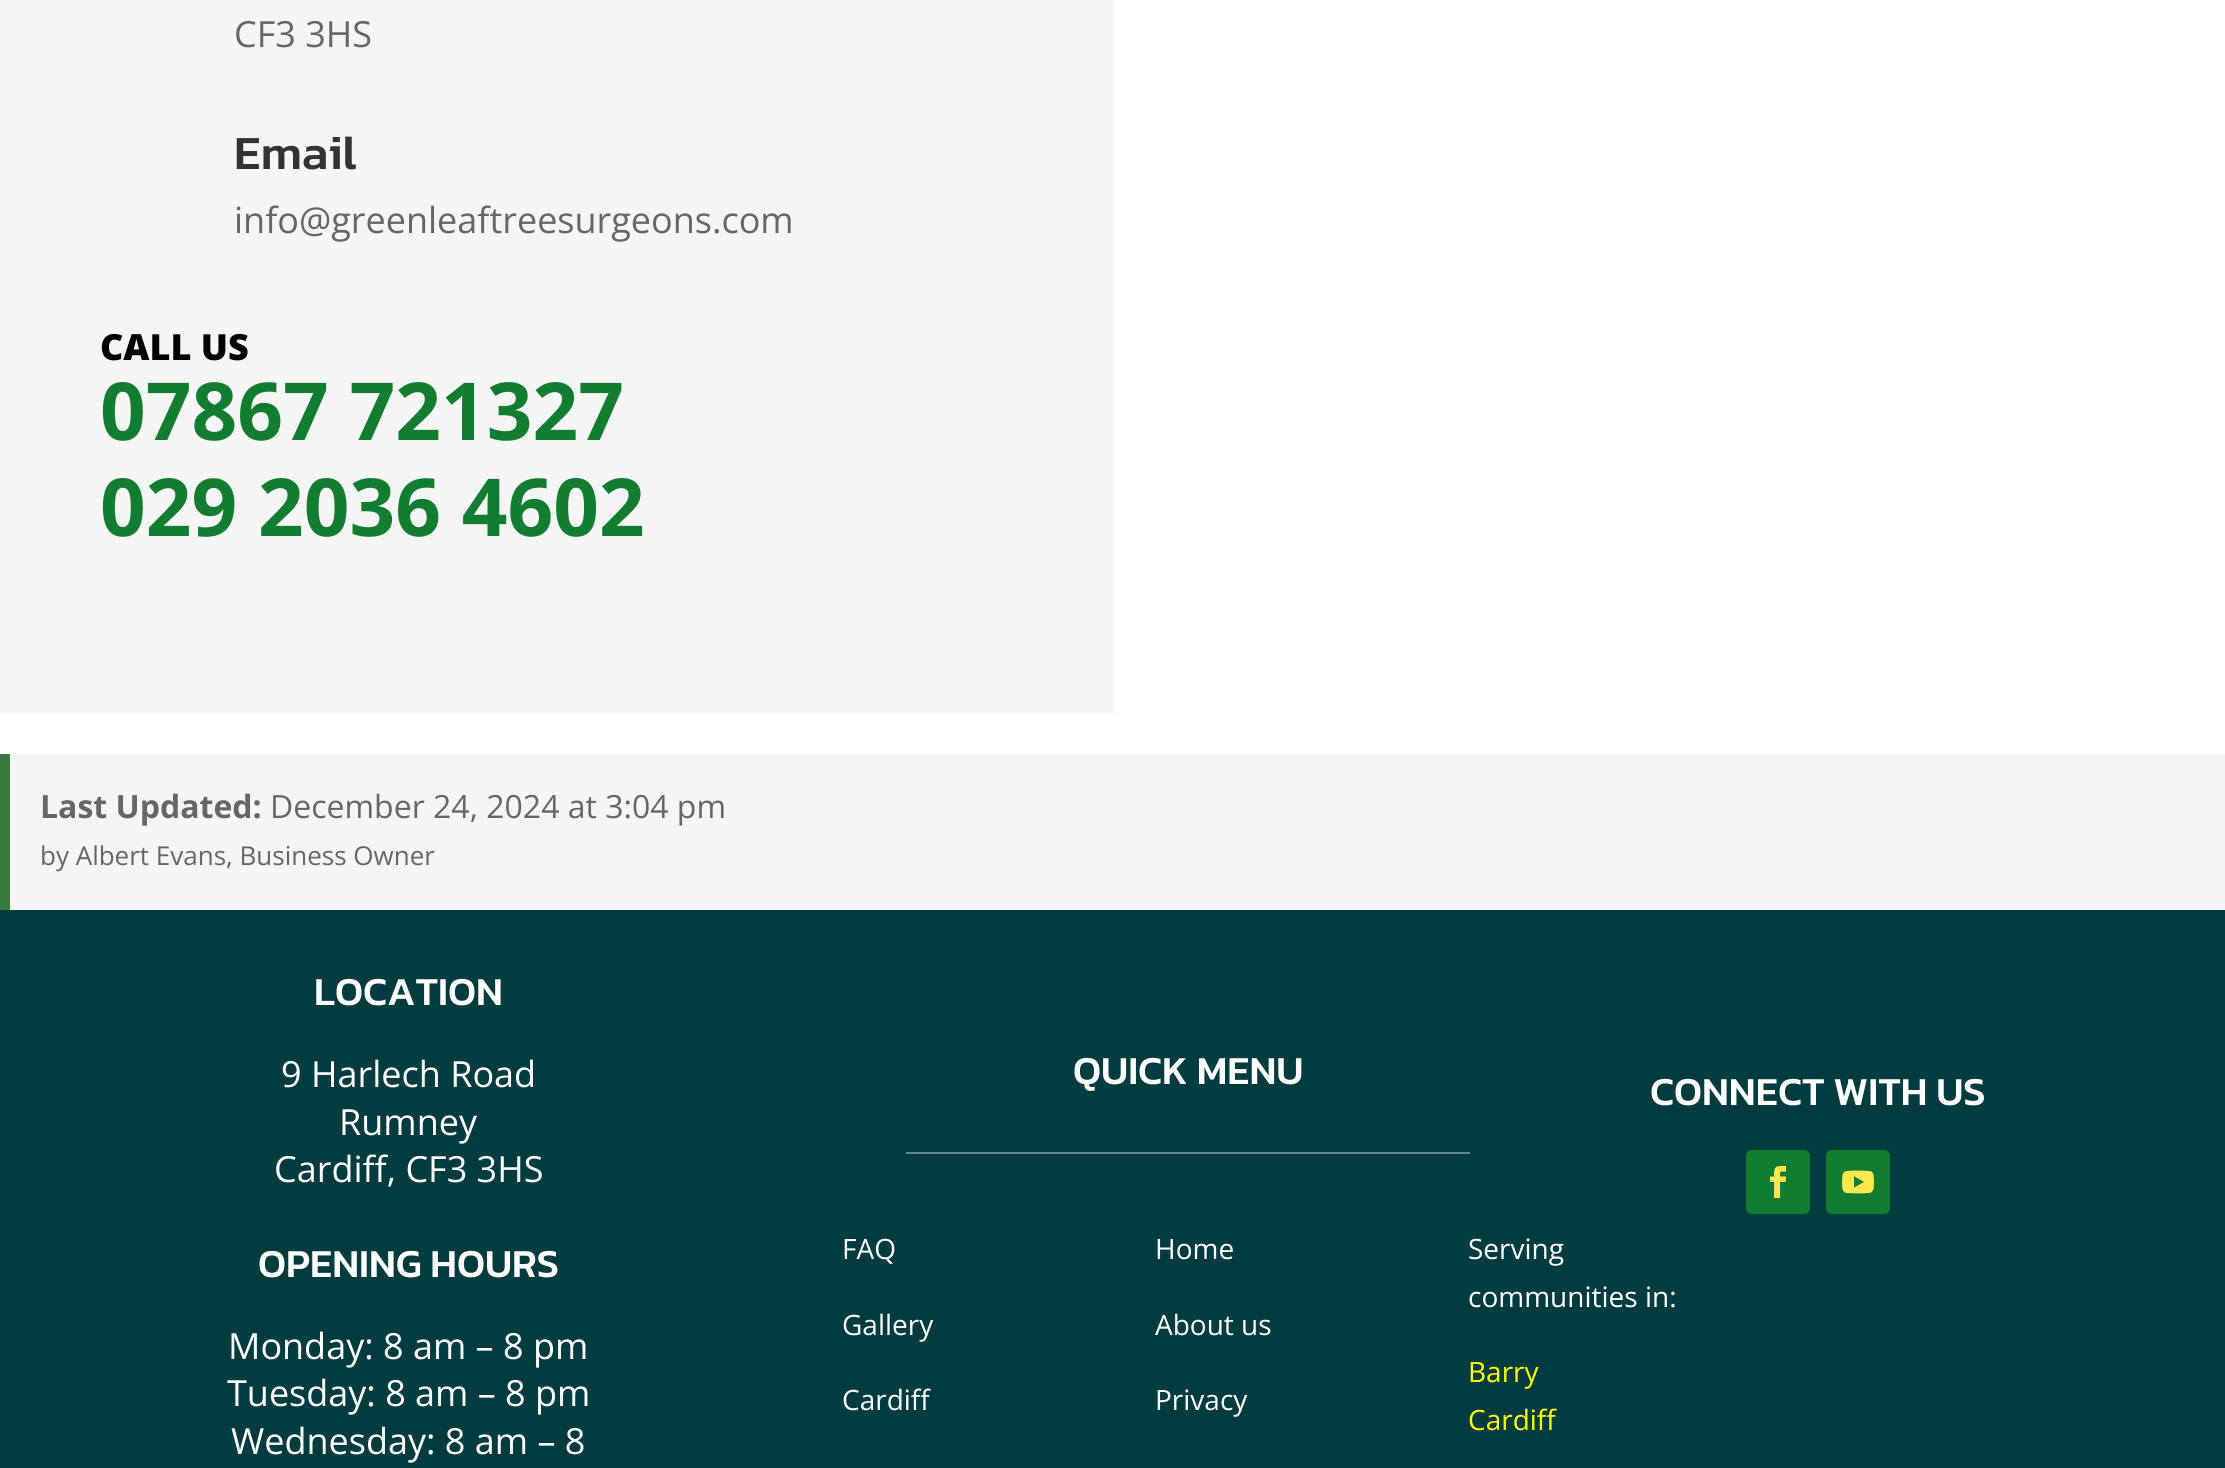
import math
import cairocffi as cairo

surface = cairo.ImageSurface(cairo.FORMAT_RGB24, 2225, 1468)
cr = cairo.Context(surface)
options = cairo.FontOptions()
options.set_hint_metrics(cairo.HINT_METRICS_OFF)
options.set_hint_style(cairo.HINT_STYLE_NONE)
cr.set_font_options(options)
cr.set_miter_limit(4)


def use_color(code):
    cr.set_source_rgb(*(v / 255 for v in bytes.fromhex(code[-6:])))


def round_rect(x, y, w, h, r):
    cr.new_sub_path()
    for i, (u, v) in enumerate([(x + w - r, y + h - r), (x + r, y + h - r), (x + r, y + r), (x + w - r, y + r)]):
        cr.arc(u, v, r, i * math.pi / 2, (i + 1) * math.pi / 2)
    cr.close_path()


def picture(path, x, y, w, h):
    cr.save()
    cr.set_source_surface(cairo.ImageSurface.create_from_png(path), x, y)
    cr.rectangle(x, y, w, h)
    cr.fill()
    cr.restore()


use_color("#ffffff")
cr.paint()
use_color("#f5f5f5")
cr.rectangle(0, 0, 1114, 714)
cr.fill()
cr.select_font_face("Open Sans")
cr.set_font_size(36)
use_color("#666666")
cr.move_to(234, 47)
cr.show_text("CF3 3HS")
cr.select_font_face("Kanit Medium")
cr.set_font_size(48)
use_color("#333333")
cr.move_to(234, 169)
cr.show_text("Email")
cr.select_font_face("Open Sans")
cr.set_font_size(36)
use_color("#666666")
cr.move_to(234, 233)
cr.show_text("info@greenleaftreesurgeons.com")
cr.select_font_face("Open Sans ExtraBold")
use_color("#000000")
cr.move_to(100, 360)
cr.show_text("CALL US")
cr.select_font_face("Open Sans", cairo.FONT_SLANT_NORMAL, cairo.FONT_WEIGHT_BOLD)
cr.set_font_size(80)
use_color("#127d31")
cr.move_to(100, 440)
cr.show_text("07867 721327")
cr.move_to(100, 536)
cr.show_text("029 2036 4602")
use_color("#f5f5f5")
cr.rectangle(10, 754, 2215, 156)
cr.fill()
use_color("#387a3a")
cr.rectangle(0, 754, 10, 156)
cr.fill()
cr.set_font_size(32)
use_color("#666666")
cr.move_to(40, 818)
cr.show_text("Last Updated:")
cr.select_font_face("Open Sans")
cr.move_to(270, 818)
cr.show_text("December 24, 2024 at 3:04 pm")
cr.set_font_size(26)
cr.move_to(40, 865)
cr.show_text("by Albert Evans, Business Owner")
use_color("#023c40")
cr.rectangle(0, 910, 2225, 558)
cr.fill()
cr.select_font_face("Kanit Medium")
cr.set_font_size(40)
use_color("#ffffff")
cr.move_to(314, 1005)
cr.show_text("LOCATION")
cr.select_font_face("Open Sans")
cr.set_font_size(36)
cr.move_to(281, 1087)
cr.show_text("9 Harlech Road")
cr.move_to(339, 1135)
cr.show_text("Rumney")
cr.move_to(274, 1182)
cr.show_text("Cardiff, CF3 3HS")
cr.select_font_face("Kanit Medium")
cr.set_font_size(40)
cr.move_to(258, 1277)
cr.show_text("OPENING HOURS")
cr.select_font_face("Open Sans")
cr.set_font_size(36)
cr.move_to(228, 1359)
cr.show_text("Monday: 8 am – 8 pm")
cr.move_to(227, 1406)
cr.show_text("Tuesday: 8 am – 8 pm")
cr.move_to(231, 1454)
cr.show_text("Wednesday: 8 am – 8")
cr.select_font_face("Kanit Medium")
cr.set_font_size(40)
cr.move_to(1073, 1084)
cr.show_text("QUICK MENU")
use_color("#678a8c")
cr.rectangle(906, 1152, 564, 2)
cr.fill()
cr.select_font_face("Open Sans")
cr.set_font_size(28)
use_color("#ffffff")
cr.move_to(842, 1259)
cr.show_text("FAQ")
cr.move_to(842, 1335)
cr.show_text("Gallery")
cr.move_to(842, 1410)
cr.show_text("Cardiff")
cr.move_to(1155, 1259)
cr.show_text("Home")
cr.move_to(1155, 1335)
cr.show_text("About us")
cr.move_to(1155, 1410)
cr.show_text("Privacy")
cr.move_to(1468, 1259)
cr.show_text("Serving")
cr.move_to(1468, 1307)
cr.show_text("communities in:")
use_color("#ffff00")
cr.move_to(1468, 1382)
cr.show_text("Barry")
cr.move_to(1468, 1430)
cr.show_text("Cardiff")
cr.select_font_face("Kanit Medium")
cr.set_font_size(40)
use_color("#ffffff")
cr.move_to(1650, 1105)
cr.show_text("CONNECT WITH US")
use_color("#127d31")
round_rect(1746, 1150, 64, 64, 6)
cr.fill()
picture("img1.png", 1770, 1166, 17, 32)
round_rect(1826, 1150, 64, 64, 6)
cr.fill()
picture("img2.png", 1842, 1170, 32, 24)
surface.write_to_png("result.png")
